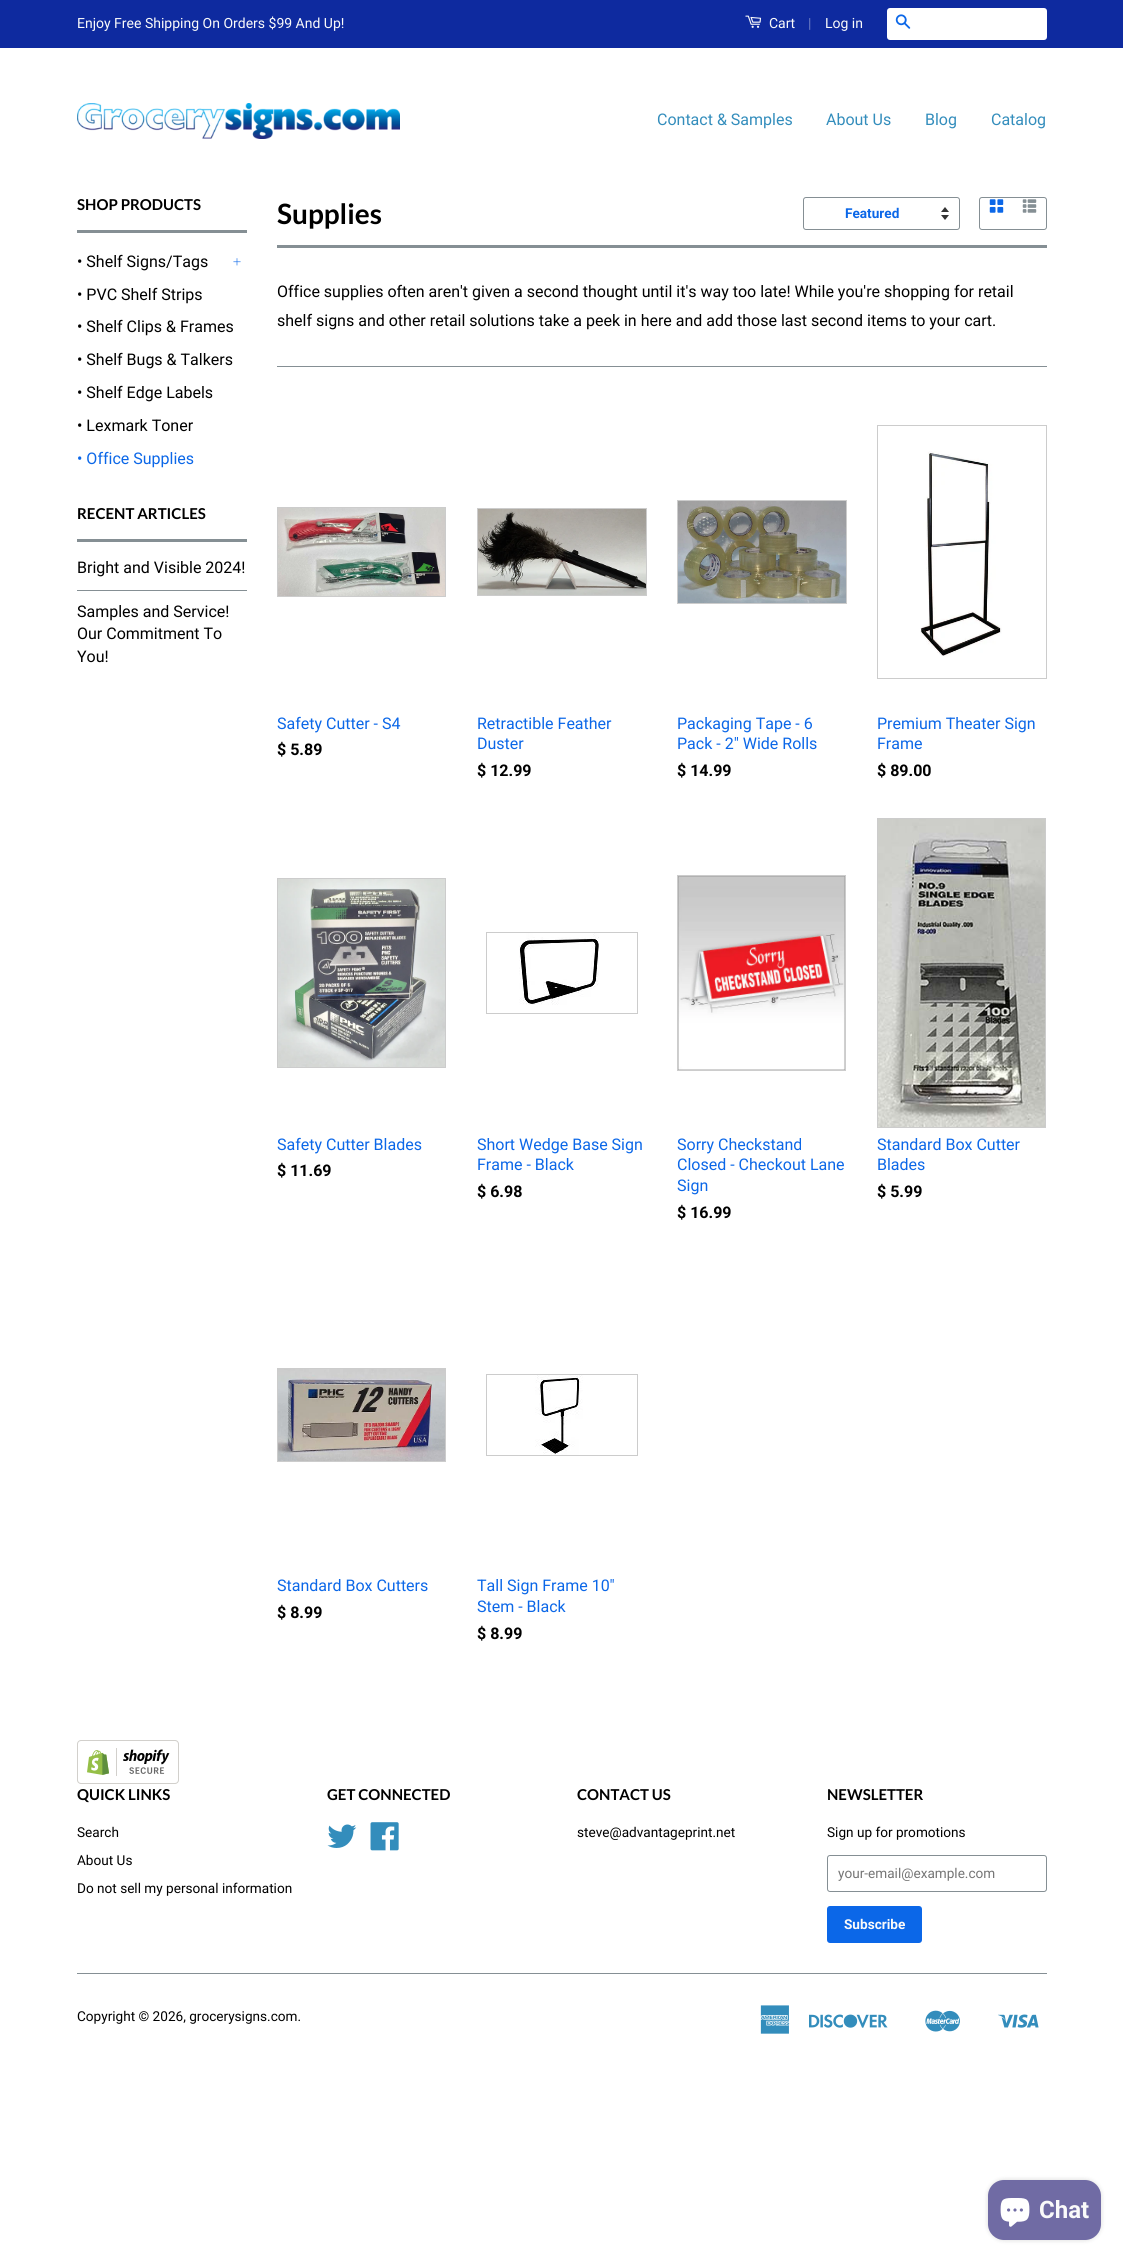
import math
import cairocffi as cairo

surface = cairo.ImageSurface(cairo.FORMAT_RGB24, 1123, 2261)
cr = cairo.Context(surface)
options = cairo.FontOptions()
options.set_hint_metrics(cairo.HINT_METRICS_OFF)
options.set_hint_style(cairo.HINT_STYLE_NONE)
cr.set_font_options(options)
cr.set_miter_limit(4)


def use_color(code):
    cr.set_source_rgb(*(v / 255 for v in bytes.fromhex(code[-6:])))


def round_rect(x, y, w, h, r):
    cr.new_sub_path()
    for i, (u, v) in enumerate([(x + w - r, y + h - r), (x + r, y + h - r), (x + r, y + r), (x + w - r, y + r)]):
        cr.arc(u, v, r, i * math.pi / 2, (i + 1) * math.pi / 2)
    cr.close_path()


def shadow(x, y, w, h, r, blur, alpha):
    cr.push_group_with_content(cairo.CONTENT_ALPHA)
    cr.set_operator(cairo.OPERATOR_SOURCE)
    for i in range(15, -16, -2):
        e = blur * i / 6
        if min(w, h) + 2 * e > 0:
            cr.set_source_rgba(0, 0, 0, alpha * math.erfc((i - 1) / 8.5) / 2)
            round_rect(x - e, y - e, w + 2 * e, h + 2 * e, max(0, min(r + e + blur * .6, min(w, h) / 2 + e)))
            cr.fill()
    cr.mask(cr.pop_group())


def picture(path, x, y, w, h):
    cr.save()
    cr.set_source_surface(cairo.ImageSurface.create_from_png(path), x, y)
    cr.rectangle(x, y, w, h)
    cr.fill()
    cr.restore()


use_color("#ffffff")
cr.paint()
use_color("#0e2a9f")
cr.rectangle(0, 0, 1123, 48)
cr.fill()
cr.select_font_face("Roboto")
cr.set_font_size(14)
use_color("#fafafa")
cr.move_to(77, 28)
cr.show_text("Enjoy Free Shipping On Orders $99 And Up!")
picture("img1.png", 745, 15, 17, 13)
cr.move_to(769, 28)
cr.show_text("Cart")
use_color("#6c7dc3")
cr.move_to(808, 28)
cr.show_text("|")
use_color("#fafafa")
cr.move_to(825, 28)
cr.show_text("Log in")
use_color("#ffffff")
round_rect(887, 8, 160, 32, 3)
cr.fill()
picture("img2.png", 895, 14, 16, 15)
picture("img3.png", 77, 103, 323, 36)
cr.set_font_size(16)
use_color("#338dbc")
cr.move_to(657, 125)
cr.show_text("Contact & Samples")
cr.move_to(826, 125)
cr.show_text("About Us")
cr.move_to(925, 125)
cr.show_text("Blog")
cr.move_to(991, 125)
cr.show_text("Catalog")
use_color("#858f94")
cr.rectangle(77, 230, 170, 3)
cr.fill()
cr.select_font_face("Lato", cairo.FONT_SLANT_NORMAL, cairo.FONT_WEIGHT_BOLD)
cr.set_font_size(15)
use_color("#000000")
cr.move_to(77, 210)
cr.show_text("SHOP PRODUCTS")
cr.select_font_face("Roboto")
cr.set_font_size(16)
cr.move_to(77, 267)
cr.show_text("• Shelf Signs/Tags")
picture("img4.png", 233, 258, 8, 8)
cr.move_to(77, 300)
cr.show_text("• PVC Shelf Strips")
cr.move_to(77, 332)
cr.show_text("• Shelf Clips & Frames")
cr.move_to(77, 365)
cr.show_text("• Shelf Bugs & Talkers")
cr.move_to(77, 398)
cr.show_text("• Shelf Edge Labels")
cr.move_to(77, 431)
cr.show_text("• Lexmark Toner")
use_color("#0b67e8")
cr.move_to(77, 464)
cr.show_text("• Office Supplies")
use_color("#858f94")
cr.rectangle(77, 539, 170, 3)
cr.fill()
cr.select_font_face("Lato", cairo.FONT_SLANT_NORMAL, cairo.FONT_WEIGHT_BOLD)
cr.set_font_size(15)
use_color("#000000")
cr.move_to(77, 519)
cr.show_text("RECENT ARTICLES")
cr.select_font_face("Roboto")
cr.set_font_size(16)
cr.move_to(77, 573)
cr.show_text("Bright and Visible 2024!")
use_color("#858f94")
cr.rectangle(77, 590, 170, 1)
cr.fill()
use_color("#000000")
cr.move_to(77, 617)
cr.show_text("Samples and Service!")
cr.move_to(77, 639)
cr.show_text("Our Commitment To")
cr.move_to(77, 662)
cr.show_text("You!")
use_color("#858f94")
cr.rectangle(277, 245, 770, 3)
cr.fill()
cr.select_font_face("Lato", cairo.FONT_SLANT_NORMAL, cairo.FONT_WEIGHT_BOLD)
cr.set_font_size(28)
use_color("#000000")
cr.move_to(277, 224)
cr.show_text("Supplies")
picture("img5.png", 941, 207, 8, 13)
round_rect(803.5, 197.5, 156, 32, 2.5)
use_color("#858f94")
cr.set_line_width(1)
cr.stroke()
cr.select_font_face("Roboto", cairo.FONT_SLANT_NORMAL, cairo.FONT_WEIGHT_BOLD)
cr.set_font_size(13.6)
use_color("#0b67e8")
cr.move_to(845, 218)
cr.show_text("Featured")
round_rect(979.5, 197.5, 67, 32, 2.5)
use_color("#858f94")
cr.stroke()
picture("img6.png", 989, 199, 15, 14)
picture("img7.png", 1022, 199, 15, 14)
cr.select_font_face("Roboto")
cr.set_font_size(16)
use_color("#000000")
cr.move_to(277, 297)
cr.show_text("Office supplies often aren't given a second thought until it's way too late! While you're shopping for retail")
cr.move_to(277, 326)
cr.show_text("shelf signs and other retail solutions take a peek in here and add those last second items to your cart.")
use_color("#858f94")
cr.rectangle(277, 366, 770, 1)
cr.fill()
cr.rectangle(277.5, 507.5, 168, 89)
use_color("#cccccc")
cr.stroke()
picture("img8.png", 278, 508, 167, 88)
use_color("#0b67e8")
cr.move_to(277, 729)
cr.show_text("Safety Cutter - S4")
cr.select_font_face("Roboto", cairo.FONT_SLANT_NORMAL, cairo.FONT_WEIGHT_BOLD)
use_color("#000000")
cr.move_to(277, 755)
cr.show_text("$ 5.89")
cr.rectangle(477.5, 508.5, 169, 87)
use_color("#cccccc")
cr.stroke()
picture("img9.png", 478, 509, 168, 86)
cr.select_font_face("Roboto")
use_color("#0b67e8")
cr.move_to(477, 729)
cr.show_text("Retractible Feather")
cr.move_to(477, 749)
cr.show_text("Duster")
cr.select_font_face("Roboto", cairo.FONT_SLANT_NORMAL, cairo.FONT_WEIGHT_BOLD)
use_color("#000000")
cr.move_to(477, 776)
cr.show_text("$ 12.99")
cr.rectangle(677.5, 500.5, 169, 103)
use_color("#cccccc")
cr.stroke()
picture("img10.png", 678, 501, 168, 102)
cr.select_font_face("Roboto")
use_color("#0b67e8")
cr.move_to(677, 729)
cr.show_text("Packaging Tape - 6")
cr.move_to(677, 749)
cr.show_text("Pack - 2\" Wide Rolls")
cr.select_font_face("Roboto", cairo.FONT_SLANT_NORMAL, cairo.FONT_WEIGHT_BOLD)
use_color("#000000")
cr.move_to(677, 776)
cr.show_text("$ 14.99")
cr.rectangle(877.5, 425.5, 169, 253)
use_color("#cccccc")
cr.stroke()
picture("img11.png", 920, 451, 82, 206)
cr.select_font_face("Roboto")
use_color("#0b67e8")
cr.move_to(877, 729)
cr.show_text("Premium Theater Sign")
cr.move_to(877, 749)
cr.show_text("Frame")
cr.select_font_face("Roboto", cairo.FONT_SLANT_NORMAL, cairo.FONT_WEIGHT_BOLD)
use_color("#000000")
cr.move_to(877, 776)
cr.show_text("$ 89.00")
cr.rectangle(277.5, 878.5, 168, 189)
use_color("#cccccc")
cr.stroke()
picture("img12.png", 278, 879, 167, 188)
cr.select_font_face("Roboto")
use_color("#0b67e8")
cr.move_to(277, 1150)
cr.show_text("Safety Cutter Blades")
cr.select_font_face("Roboto", cairo.FONT_SLANT_NORMAL, cairo.FONT_WEIGHT_BOLD)
use_color("#000000")
cr.move_to(277, 1176)
cr.show_text("$ 11.69")
cr.rectangle(486.5, 932.5, 151, 81)
use_color("#cccccc")
cr.stroke()
picture("img13.png", 519, 933, 80, 72)
cr.select_font_face("Roboto")
use_color("#0b67e8")
cr.move_to(477, 1150)
cr.show_text("Short Wedge Base Sign")
cr.move_to(477, 1170)
cr.show_text("Frame - Black")
cr.select_font_face("Roboto", cairo.FONT_SLANT_NORMAL, cairo.FONT_WEIGHT_BOLD)
use_color("#000000")
cr.move_to(477, 1197)
cr.show_text("$ 6.98")
cr.rectangle(677.5, 875.5, 168, 195)
use_color("#cccccc")
cr.stroke()
picture("img14.png", 678, 876, 167, 194)
cr.select_font_face("Roboto")
use_color("#0b67e8")
cr.move_to(677, 1150)
cr.show_text("Sorry Checkstand")
cr.move_to(677, 1170)
cr.show_text("Closed - Checkout Lane")
cr.move_to(677, 1191)
cr.show_text("Sign")
cr.select_font_face("Roboto", cairo.FONT_SLANT_NORMAL, cairo.FONT_WEIGHT_BOLD)
use_color("#000000")
cr.move_to(677, 1218)
cr.show_text("$ 16.99")
cr.rectangle(877.5, 818.5, 168, 309)
use_color("#cccccc")
cr.stroke()
picture("img15.png", 878, 819, 167, 308)
cr.select_font_face("Roboto")
use_color("#0b67e8")
cr.move_to(877, 1150)
cr.show_text("Standard Box Cutter")
cr.move_to(877, 1170)
cr.show_text("Blades")
cr.select_font_face("Roboto", cairo.FONT_SLANT_NORMAL, cairo.FONT_WEIGHT_BOLD)
use_color("#000000")
cr.move_to(877, 1197)
cr.show_text("$ 5.99")
cr.rectangle(277.5, 1368.5, 168, 93)
use_color("#cccccc")
cr.stroke()
picture("img16.png", 278, 1369, 167, 92)
cr.select_font_face("Roboto")
use_color("#0b67e8")
cr.move_to(277, 1591)
cr.show_text("Standard Box Cutters")
cr.select_font_face("Roboto", cairo.FONT_SLANT_NORMAL, cairo.FONT_WEIGHT_BOLD)
use_color("#000000")
cr.move_to(277, 1618)
cr.show_text("$ 8.99")
cr.rectangle(486.5, 1374.5, 151, 81)
use_color("#cccccc")
cr.stroke()
picture("img17.png", 535, 1375, 48, 80)
cr.select_font_face("Roboto")
use_color("#0b67e8")
cr.move_to(477, 1591)
cr.show_text("Tall Sign Frame 10\"")
cr.move_to(477, 1612)
cr.show_text("Stem - Black")
cr.select_font_face("Roboto", cairo.FONT_SLANT_NORMAL, cairo.FONT_WEIGHT_BOLD)
use_color("#000000")
cr.move_to(477, 1639)
cr.show_text("$ 8.99")
picture("img18.png", 77, 1740, 102, 44)
cr.select_font_face("Lato", cairo.FONT_SLANT_NORMAL, cairo.FONT_WEIGHT_BOLD)
cr.set_font_size(15)
cr.move_to(77, 1800)
cr.show_text("QUICK LINKS")
cr.select_font_face("Roboto")
cr.set_font_size(13.6)
cr.move_to(77, 1837)
cr.show_text("Search")
cr.move_to(77, 1865)
cr.show_text("About Us")
cr.move_to(77, 1893)
cr.show_text("Do not sell my personal information")
cr.select_font_face("Lato", cairo.FONT_SLANT_NORMAL, cairo.FONT_WEIGHT_BOLD)
cr.set_font_size(15)
cr.move_to(327, 1800)
cr.show_text("GET CONNECTED")
picture("img19.png", 327, 1824, 30, 24)
picture("img20.png", 370, 1822, 29, 29)
cr.move_to(577, 1800)
cr.show_text("CONTACT US")
cr.select_font_face("Roboto")
cr.set_font_size(13.6)
cr.move_to(577, 1837)
cr.show_text("steve@advantageprint.net")
cr.select_font_face("Lato", cairo.FONT_SLANT_NORMAL, cairo.FONT_WEIGHT_BOLD)
cr.set_font_size(15)
cr.move_to(827, 1800)
cr.show_text("NEWSLETTER")
cr.select_font_face("Roboto")
cr.set_font_size(13.6)
cr.move_to(827, 1837)
cr.show_text("Sign up for promotions")
round_rect(827.5, 1855.5, 219, 36, 2.5)
use_color("#858f94")
cr.stroke()
use_color("#757575")
cr.move_to(838, 1878)
cr.show_text("your-email@example.com")
use_color("#0b67e8")
round_rect(827, 1906, 95, 37, 3)
cr.fill()
cr.select_font_face("Roboto", cairo.FONT_SLANT_NORMAL, cairo.FONT_WEIGHT_BOLD)
use_color("#fafafa")
cr.move_to(844, 1929)
cr.show_text("Subscribe")
use_color("#858f94")
cr.rectangle(77, 1973, 970, 1)
cr.fill()
cr.select_font_face("Roboto")
use_color("#000000")
cr.move_to(77, 2021)
cr.show_text("Copyright © 2026, grocerysigns.com.")
picture("img21.png", 760, 2005, 30, 29)
picture("img22.png", 809, 2014, 79, 14)
picture("img23.png", 925, 2010, 35, 22)
picture("img24.png", 998, 2014, 41, 14)
use_color("#000000")
shadow(988, 2180, 113, 60, 16, 2.5, 0.15)
use_color("#706ba4")
round_rect(988, 2180, 113, 60, 16)
cr.fill()
picture("img25.png", 1000, 2198, 30, 29)
cr.select_font_face("Roboto", cairo.FONT_SLANT_NORMAL, cairo.FONT_WEIGHT_BOLD)
cr.set_font_size(24)
use_color("#fafafa")
cr.move_to(1039, 2218)
cr.show_text("Chat")
surface.write_to_png("result.png")
